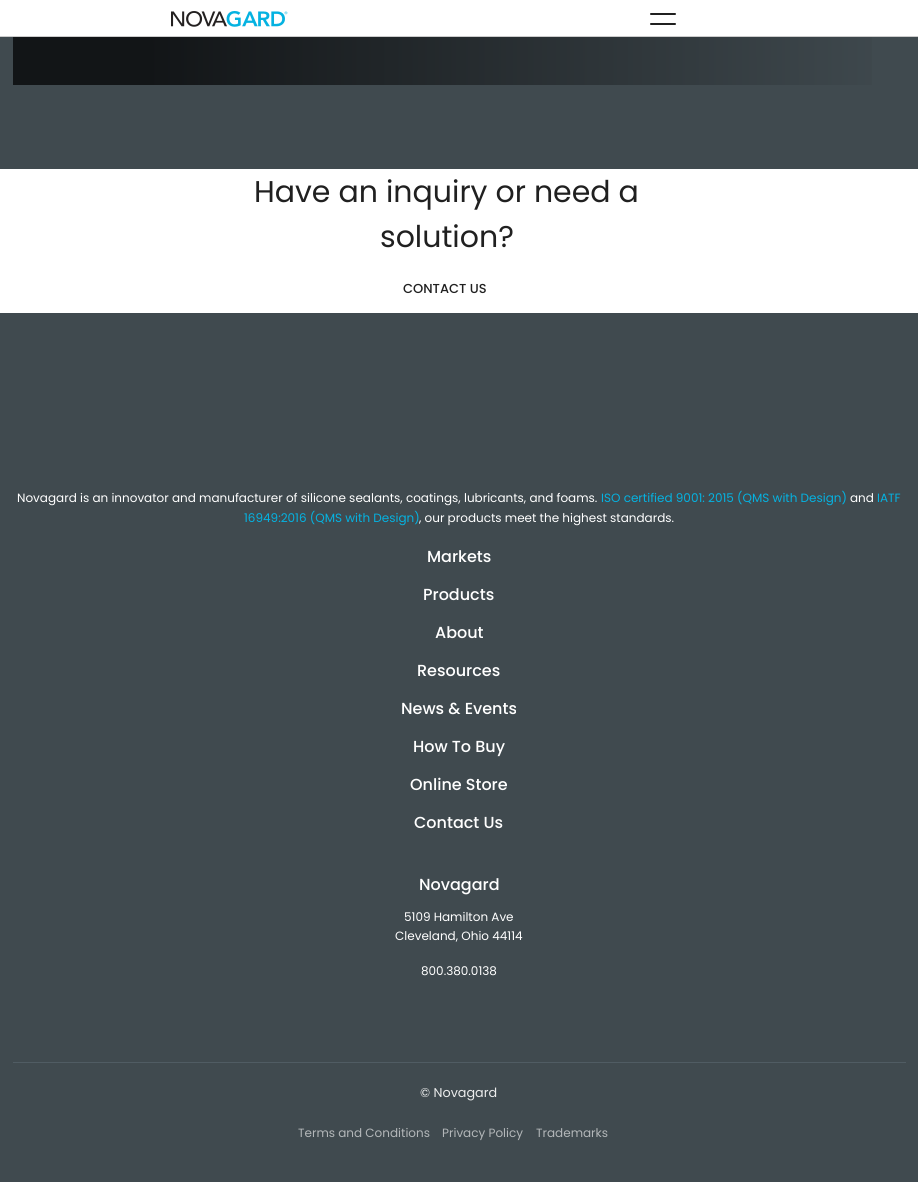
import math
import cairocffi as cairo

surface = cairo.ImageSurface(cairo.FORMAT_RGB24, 918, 1182)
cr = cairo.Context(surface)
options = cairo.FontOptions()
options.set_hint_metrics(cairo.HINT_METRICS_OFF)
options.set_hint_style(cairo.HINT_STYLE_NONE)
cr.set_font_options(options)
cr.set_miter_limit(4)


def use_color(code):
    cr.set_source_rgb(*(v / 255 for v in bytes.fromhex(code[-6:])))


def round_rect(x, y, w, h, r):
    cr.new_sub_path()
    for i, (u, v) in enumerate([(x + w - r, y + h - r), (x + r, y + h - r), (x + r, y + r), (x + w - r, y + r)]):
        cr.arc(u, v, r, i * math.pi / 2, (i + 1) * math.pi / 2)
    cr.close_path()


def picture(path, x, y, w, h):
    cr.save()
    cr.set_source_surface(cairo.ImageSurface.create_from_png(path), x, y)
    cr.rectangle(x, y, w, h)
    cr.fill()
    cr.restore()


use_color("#ffffff")
cr.paint()
use_color("#cccccc")
cr.rectangle(0, 36, 918, 1)
cr.fill()
picture("img1.png", 171, 11, 117, 16)
use_color("#202020")
round_rect(650, 13, 26, 2, 1)
cr.fill()
round_rect(650, 23, 26, 2, 1)
cr.fill()
use_color("#404a4f")
cr.rectangle(0, 37, 918, 132)
cr.fill()
gradient = cairo.LinearGradient(13, 36, 906, 35)
gradient.add_color_stop_rgba(0.15, 0.071, 0.082, 0.09, 1)
gradient.add_color_stop_rgba(1, 0.251, 0.29, 0.31, 1)
cr.set_source(gradient)
cr.rectangle(13, 37, 859, 48)
cr.fill()
cr.select_font_face("Poppins")
cr.set_font_size(30)
use_color("#202020")
cr.move_to(254, 202)
cr.show_text("Have an inquiry or need a")
cr.move_to(380, 247)
cr.show_text("solution?")
cr.select_font_face("Poppins Medium")
cr.set_font_size(13)
cr.move_to(403, 293)
cr.show_text("CONTACT US")
use_color("#404a4f")
cr.rectangle(0, 313, 918, 869)
cr.fill()
cr.select_font_face("Poppins")
cr.set_font_size(12)
use_color("#ffffff")
cr.move_to(17, 502)
cr.show_text("Novagard is an innovator and manufacturer of silicone sealants, coatings, lubricants, and foams.")
use_color("#04b2e1")
cr.move_to(601, 502)
cr.show_text("ISO certified 9001: 2015 (QMS with Design)")
use_color("#ffffff")
cr.move_to(850, 502)
cr.show_text("and")
use_color("#04b2e1")
cr.move_to(877, 502)
cr.show_text("IATF")
cr.move_to(244, 522)
cr.show_text("16949:2016 (QMS with Design)")
use_color("#ffffff")
cr.move_to(419, 522)
cr.show_text(", our products meet the highest standards.")
cr.select_font_face("Poppins Medium")
cr.set_font_size(16)
cr.move_to(427, 562)
cr.show_text("Markets")
cr.move_to(423, 600)
cr.show_text("Products")
cr.move_to(435, 638)
cr.show_text("About")
cr.move_to(417, 676)
cr.show_text("Resources")
cr.move_to(401, 714)
cr.show_text("News & Events")
cr.move_to(413, 752)
cr.show_text("How To Buy")
cr.move_to(410, 790)
cr.show_text("Online Store")
cr.move_to(414, 828)
cr.show_text("Contact Us")
cr.move_to(419, 890)
cr.show_text("Novagard")
cr.select_font_face("Poppins")
cr.set_font_size(12)
cr.move_to(404, 921)
cr.show_text("5109 Hamilton Ave")
cr.move_to(395, 940)
cr.show_text("Cleveland, Ohio 44114")
cr.move_to(421, 975)
cr.show_text("800.380.0138")
use_color("#505c63")
cr.rectangle(13, 1062, 893, 1)
cr.fill()
cr.set_font_size(12.75)
use_color("#eceded")
cr.move_to(420, 1097)
cr.show_text("© Novagard")
cr.set_font_size(12)
use_color("#b3b7b9")
cr.move_to(298, 1137)
cr.show_text("Terms and Conditions")
cr.move_to(442, 1137)
cr.show_text("Privacy Policy")
cr.move_to(536, 1137)
cr.show_text("Trademarks")
surface.write_to_png("result.png")
